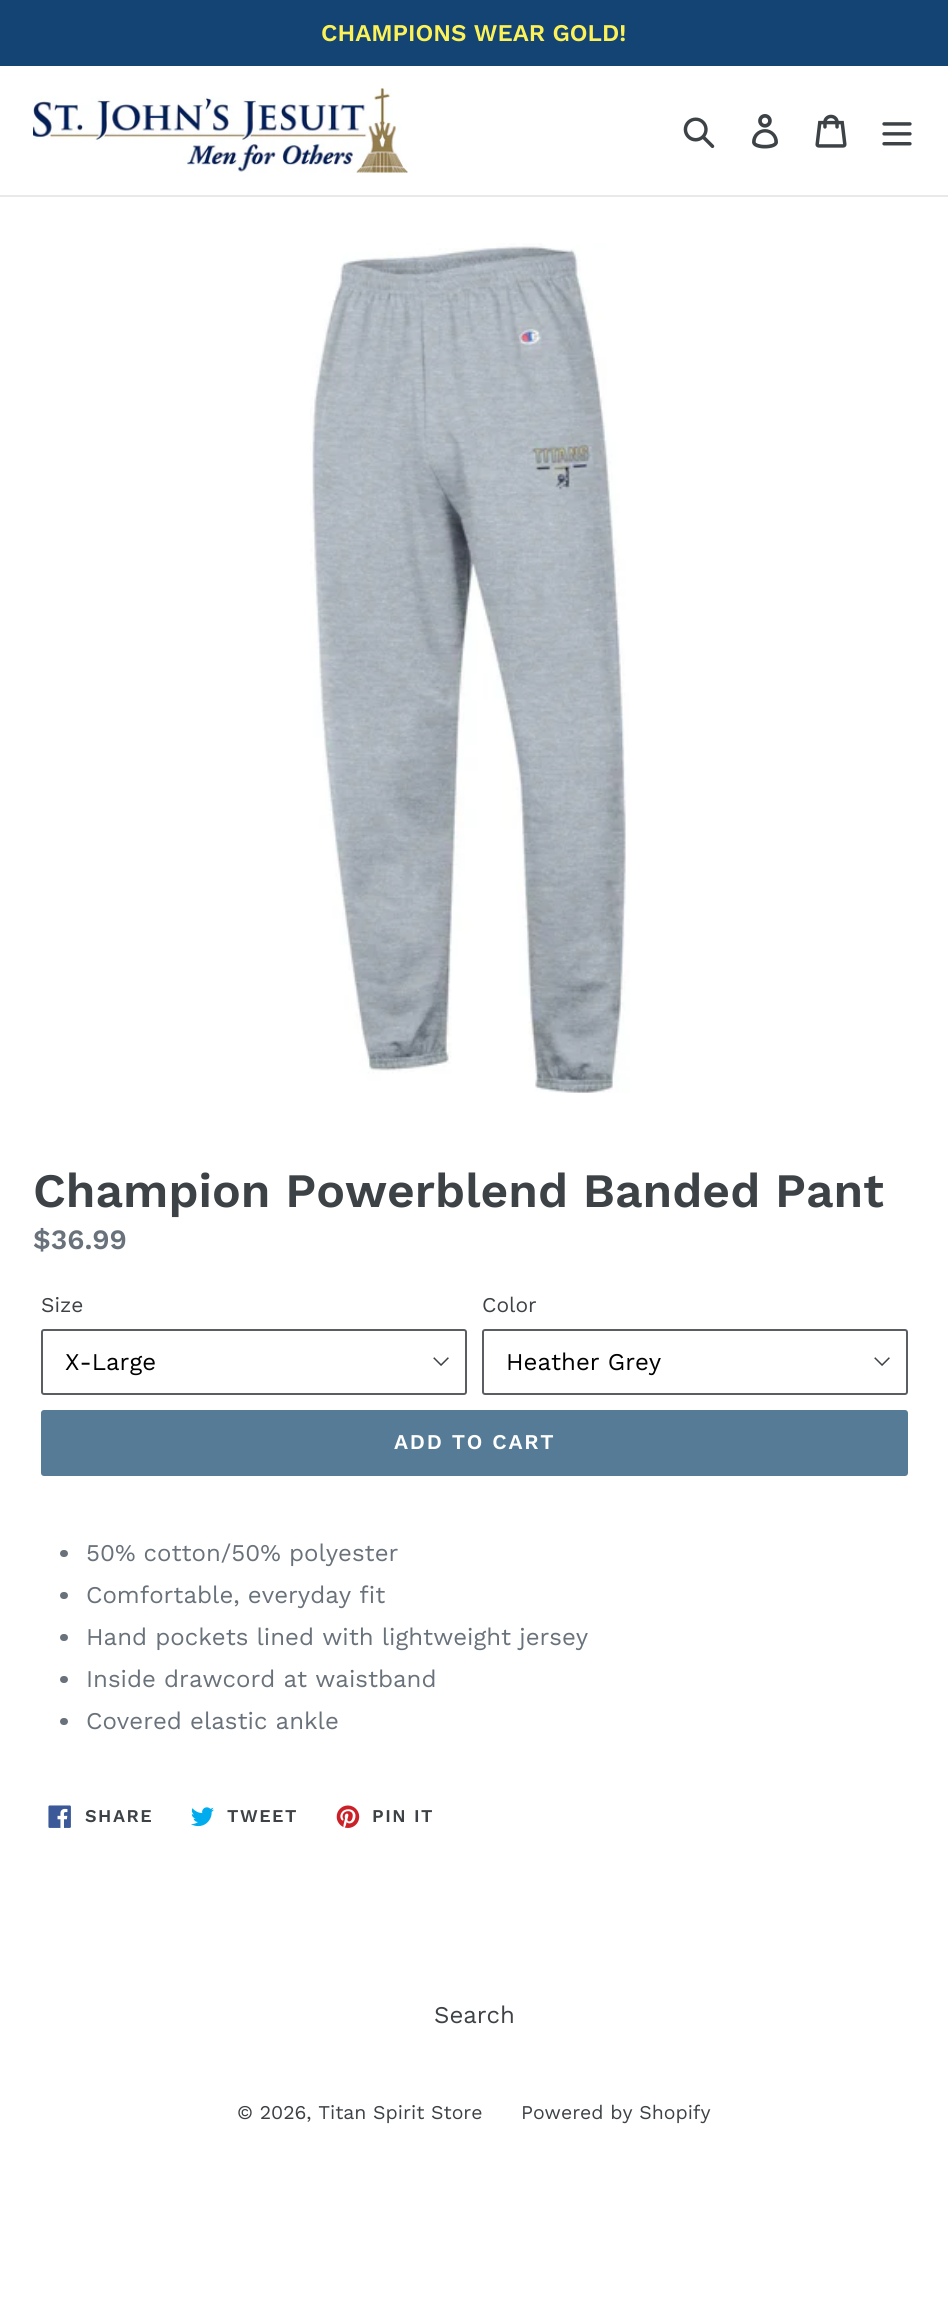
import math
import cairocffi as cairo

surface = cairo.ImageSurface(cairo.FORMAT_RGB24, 948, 2301)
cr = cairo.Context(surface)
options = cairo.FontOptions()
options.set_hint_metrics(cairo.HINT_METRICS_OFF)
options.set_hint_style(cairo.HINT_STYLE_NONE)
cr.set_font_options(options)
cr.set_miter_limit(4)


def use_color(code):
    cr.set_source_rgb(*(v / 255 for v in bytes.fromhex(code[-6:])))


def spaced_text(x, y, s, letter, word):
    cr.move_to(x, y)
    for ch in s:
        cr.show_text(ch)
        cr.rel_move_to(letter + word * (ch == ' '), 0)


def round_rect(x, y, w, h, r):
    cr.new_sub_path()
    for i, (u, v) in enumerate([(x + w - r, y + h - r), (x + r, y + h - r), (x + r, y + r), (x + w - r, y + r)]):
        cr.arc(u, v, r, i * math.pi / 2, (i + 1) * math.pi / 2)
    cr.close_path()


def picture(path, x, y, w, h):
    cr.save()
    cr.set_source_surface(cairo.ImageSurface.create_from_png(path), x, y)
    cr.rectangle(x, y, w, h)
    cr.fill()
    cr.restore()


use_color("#ffffff")
cr.paint()
use_color("#134474")
cr.rectangle(0, 0, 948, 66)
cr.fill()
cr.select_font_face("Work Sans SemiBold")
cr.set_font_size(24)
use_color("#fcf258")
cr.move_to(321, 41)
cr.show_text("CHAMPIONS WEAR GOLD!")
use_color("#e8e9eb")
cr.rectangle(0, 195, 948, 2)
cr.fill()
picture("img1.png", 33, 88, 375, 85)
picture("img2.png", 683, 117, 32, 32)
picture("img3.png", 752, 114, 26, 35)
picture("img4.png", 815, 114, 32, 34)
picture("img5.png", 882, 122, 30, 24)
picture("img6.png", 310, 243, 320, 850)
cr.set_font_size(48)
use_color("#3d4246")
cr.move_to(33, 1207)
cr.show_text("Champion Powerblend Banded Pant")
cr.set_font_size(28)
use_color("#69727b")
cr.move_to(33, 1249)
cr.show_text("$36.99")
cr.select_font_face("Work Sans")
cr.set_font_size(21)
use_color("#3d4246")
cr.move_to(41, 1312)
cr.show_text("Size")
picture("img7.png", 433, 1357, 16, 9)
round_rect(42, 1330, 424, 64, 2)
use_color("#5a5e62")
cr.stroke()
cr.set_font_size(24)
use_color("#000000")
cr.move_to(65, 1370)
cr.show_text("X-Large")
cr.set_font_size(21)
use_color("#3d4246")
cr.move_to(482, 1312)
cr.show_text("Color")
picture("img7.png", 874, 1357, 16, 9)
round_rect(483, 1330, 424, 64, 2)
use_color("#5a5e62")
cr.stroke()
cr.set_font_size(24)
use_color("#000000")
cr.move_to(506, 1370)
cr.show_text("Heather Grey")
use_color("#557b97")
round_rect(41, 1410, 867, 66, 3)
cr.fill()
cr.select_font_face("Work Sans SemiBold")
cr.set_font_size(21)
use_color("#ffffff")
spaced_text(394, 1449, "ADD TO CART", 1.75, 0)
use_color("#69727b")
round_rect(60, 1550, 8, 7, 3.5)
cr.fill()
cr.select_font_face("Work Sans")
cr.set_font_size(24)
cr.move_to(86, 1561)
cr.show_text("50% cotton/50% polyester")
round_rect(60, 1592, 8, 7, 3.5)
cr.fill()
cr.move_to(86, 1603)
cr.show_text("Comfortable, everyday fit")
round_rect(60, 1634, 8, 7, 3.5)
cr.fill()
cr.move_to(86, 1645)
cr.show_text("Hand pockets lined with lightweight jersey")
round_rect(60, 1676, 8, 7, 3.5)
cr.fill()
cr.move_to(86, 1687)
cr.show_text("Inside drawcord at waistband")
round_rect(60, 1718, 8, 7, 3.5)
cr.fill()
cr.move_to(86, 1729)
cr.show_text("Covered elastic ankle")
picture("img8.png", 48, 1805, 23, 23)
cr.select_font_face("Work Sans SemiBold")
cr.set_font_size(18)
use_color("#3d4246")
spaced_text(85, 1822, "SHARE", 1.5, 0)
picture("img9.png", 191, 1807, 23, 20)
spaced_text(227, 1822, "TWEET", 1.5, 0)
picture("img10.png", 336, 1805, 24, 23)
spaced_text(372, 1822, "PIN IT", 1.5, 0)
cr.select_font_face("Work Sans")
cr.set_font_size(24)
cr.move_to(434, 2023)
cr.show_text("Search")
cr.set_font_size(19.5)
cr.move_to(237, 2119)
cr.show_text("© 2026, Titan Spirit Store")
cr.move_to(521, 2119)
cr.show_text("Powered by Shopify")
surface.write_to_png("result.png")
